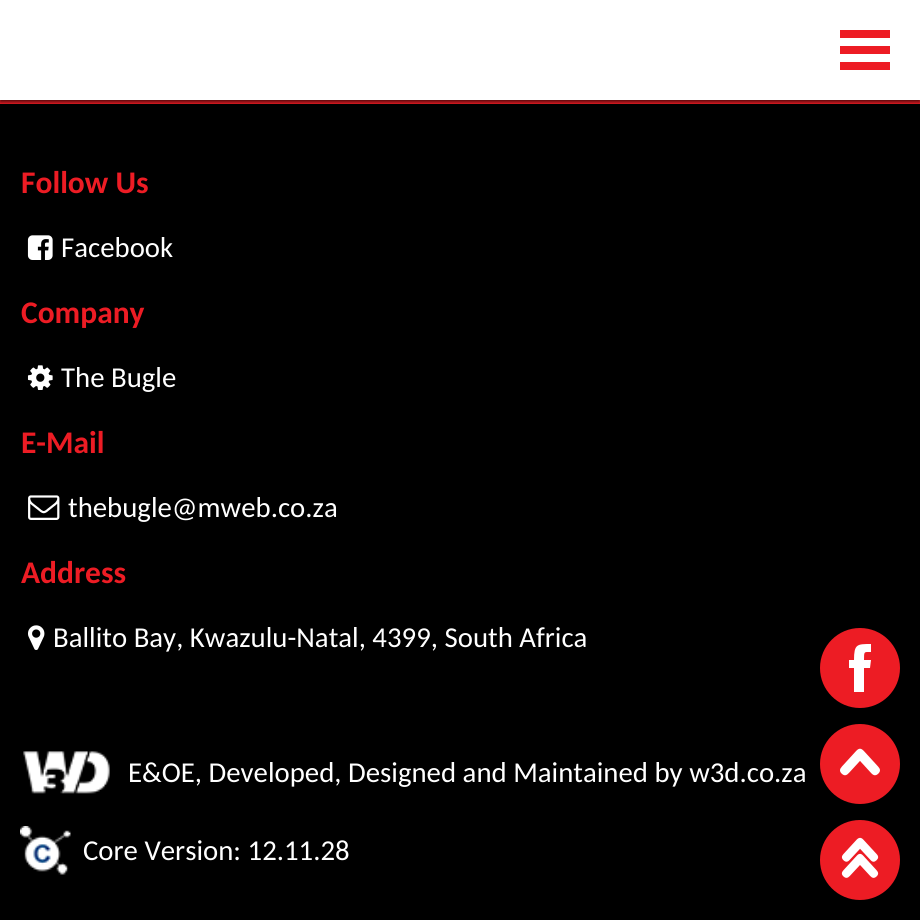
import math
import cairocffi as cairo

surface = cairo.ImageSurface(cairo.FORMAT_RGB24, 920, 920)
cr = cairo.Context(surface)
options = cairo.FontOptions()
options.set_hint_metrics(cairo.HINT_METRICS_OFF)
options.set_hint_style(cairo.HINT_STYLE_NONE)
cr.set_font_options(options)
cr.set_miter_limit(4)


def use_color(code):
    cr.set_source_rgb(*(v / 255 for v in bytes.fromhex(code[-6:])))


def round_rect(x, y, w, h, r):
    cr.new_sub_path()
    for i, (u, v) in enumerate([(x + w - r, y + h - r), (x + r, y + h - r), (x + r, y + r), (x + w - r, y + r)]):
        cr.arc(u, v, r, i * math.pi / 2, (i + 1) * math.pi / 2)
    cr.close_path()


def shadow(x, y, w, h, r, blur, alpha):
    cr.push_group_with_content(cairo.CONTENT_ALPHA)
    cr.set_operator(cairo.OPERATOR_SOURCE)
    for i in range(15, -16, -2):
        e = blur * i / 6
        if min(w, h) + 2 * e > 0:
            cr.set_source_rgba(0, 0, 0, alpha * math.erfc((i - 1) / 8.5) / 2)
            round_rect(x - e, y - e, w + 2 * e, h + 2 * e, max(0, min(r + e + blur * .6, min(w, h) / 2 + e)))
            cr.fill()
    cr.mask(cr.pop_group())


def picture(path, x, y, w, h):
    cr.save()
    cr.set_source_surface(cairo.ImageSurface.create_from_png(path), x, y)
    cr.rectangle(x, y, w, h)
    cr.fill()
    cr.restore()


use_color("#ed1c24")
cr.paint()
use_color("#000000")
cr.rectangle(0, 104, 920, 816)
cr.fill()
use_color("#000000")
shadow(0, 2, 920, 100, 0, 2, 0.7)
use_color("#ffffff")
cr.rectangle(0, 0, 920, 100)
cr.fill()
use_color("#ed1c24")
cr.rectangle(840, 30, 50, 8)
cr.fill()
cr.rectangle(840, 46, 50, 8)
cr.fill()
cr.rectangle(840, 62, 50, 8)
cr.fill()
cr.select_font_face("Carlito", cairo.FONT_SLANT_NORMAL, cairo.FONT_WEIGHT_BOLD)
cr.set_font_size(31.5)
cr.move_to(21, 193)
cr.show_text("Follow Us")
picture("img1.png", 27, 235, 26, 25)
cr.select_font_face("Carlito")
cr.set_font_size(28.8)
use_color("#ffffff")
cr.move_to(61, 257)
cr.show_text("Facebook")
cr.select_font_face("Carlito", cairo.FONT_SLANT_NORMAL, cairo.FONT_WEIGHT_BOLD)
cr.set_font_size(31.5)
use_color("#ed1c24")
cr.move_to(21, 323)
cr.show_text("Company")
picture("img2.png", 27, 365, 26, 25)
cr.select_font_face("Carlito")
cr.set_font_size(28.8)
use_color("#ffffff")
cr.move_to(61, 387)
cr.show_text("The Bugle")
cr.select_font_face("Carlito", cairo.FONT_SLANT_NORMAL, cairo.FONT_WEIGHT_BOLD)
cr.set_font_size(31.5)
use_color("#ed1c24")
cr.move_to(21, 453)
cr.show_text("E-Mail")
picture("img3.png", 28, 495, 32, 25)
cr.select_font_face("Carlito")
cr.set_font_size(28.8)
use_color("#ffffff")
cr.move_to(68, 517)
cr.show_text("thebugle@mweb.co.za")
cr.select_font_face("Carlito", cairo.FONT_SLANT_NORMAL, cairo.FONT_WEIGHT_BOLD)
cr.set_font_size(31.5)
use_color("#ed1c24")
cr.move_to(21, 583)
cr.show_text("Address")
picture("img4.png", 28, 625, 17, 25)
cr.select_font_face("Carlito")
cr.set_font_size(28.8)
use_color("#ffffff")
cr.move_to(53, 647)
cr.show_text("Ballito Bay, Kwazulu-Natal, 4399, South Africa")
picture("img5.png", 23, 751, 87, 43)
cr.move_to(128, 782)
cr.show_text("E&OE, Developed, Designed and Maintained by w3d.co.za")
picture("img6.png", 20, 826, 51, 49)
cr.move_to(83, 860)
cr.show_text("Core Version: 12.11.28")
use_color("#ed1c24")
cr.new_path()
cr.arc(860, 668, 40, 0, 2 * math.pi)
cr.fill()
use_color("#ffffff")
cr.new_path()
cr.move_to(871, 660)
cr.line_to(864, 660)
cr.curve_to(864, 651, 864, 652, 871, 652)
cr.line_to(871, 644)
cr.curve_to(857, 644, 854, 644, 854, 660)
cr.line_to(849, 660)
cr.line_to(849, 668)
cr.line_to(854, 668)
cr.line_to(854, 692)
cr.line_to(864, 692)
cr.line_to(864, 668)
cr.line_to(870, 668)
cr.close_path()
cr.fill()
use_color("#ed1c24")
cr.arc(860, 764, 40, 0, 2 * math.pi)
cr.fill()
picture("img7.png", 840, 748, 40, 28)
cr.arc(860, 860, 40, 0, 2 * math.pi)
cr.fill()
picture("img8.png", 841, 837, 38, 41)
surface.write_to_png("result.png")
